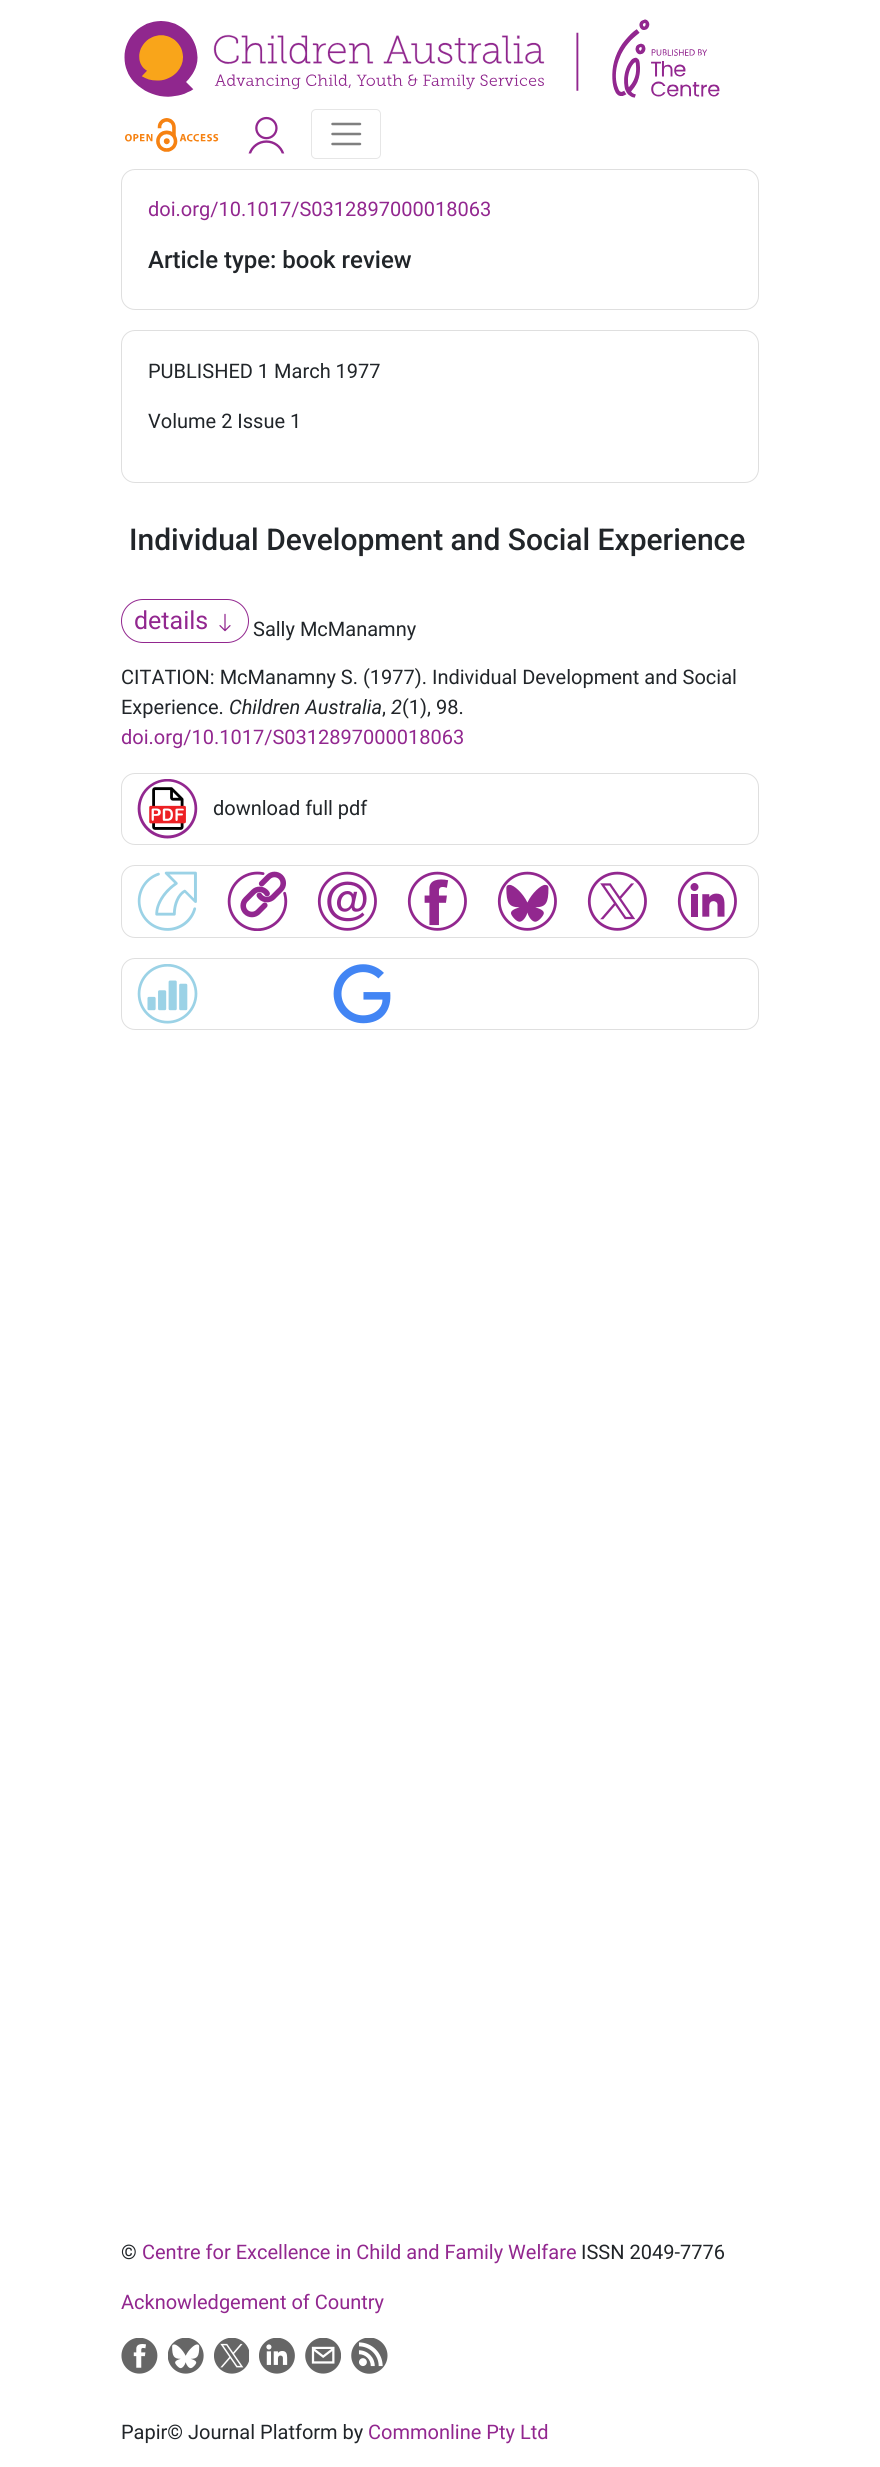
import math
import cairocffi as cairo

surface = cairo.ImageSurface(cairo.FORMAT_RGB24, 880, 2467)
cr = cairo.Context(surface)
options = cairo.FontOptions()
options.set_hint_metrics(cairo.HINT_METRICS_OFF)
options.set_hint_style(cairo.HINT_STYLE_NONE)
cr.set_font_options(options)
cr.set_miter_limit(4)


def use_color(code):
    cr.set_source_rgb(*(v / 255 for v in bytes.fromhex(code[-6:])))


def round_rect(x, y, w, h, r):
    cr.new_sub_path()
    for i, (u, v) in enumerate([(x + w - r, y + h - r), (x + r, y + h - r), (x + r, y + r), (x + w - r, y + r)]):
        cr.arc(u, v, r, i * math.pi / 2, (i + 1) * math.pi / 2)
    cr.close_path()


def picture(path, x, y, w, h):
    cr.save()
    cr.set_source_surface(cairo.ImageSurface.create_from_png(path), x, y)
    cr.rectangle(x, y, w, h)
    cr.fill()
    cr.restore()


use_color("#ffffff")
cr.paint()
picture("img1.png", 124, 19, 596, 79)
picture("img2.png", 125, 118, 94, 34)
picture("img3.png", 248, 116, 37, 38)
round_rect(311.5, 109.5, 69, 49, 4.5)
use_color("#e6e6e6")
cr.set_line_width(1)
cr.stroke()
cr.new_path()
cr.move_to(332.5, 124)
cr.line_to(360, 124)
cr.move_to(332.5, 134)
cr.line_to(360, 134)
cr.move_to(332.5, 144)
cr.line_to(360, 144)
use_color("#808080")
cr.set_line_width(2.5)
cr.set_line_cap(cairo.LINE_CAP_ROUND)
cr.stroke()
round_rect(121.5, 169.5, 637, 140, 13.5)
use_color("#dfdfdf")
cr.set_line_width(1)
cr.set_line_cap(cairo.LINE_CAP_BUTT)
cr.stroke()
cr.select_font_face("Roboto")
cr.set_font_size(20)
use_color("#92278f")
cr.move_to(148, 216)
cr.show_text("doi.org/10.1017/S0312897000018063")
cr.select_font_face("Roboto Medium")
cr.set_font_size(24)
use_color("#212529")
cr.move_to(148, 268)
cr.show_text("Article type: book review")
round_rect(121.5, 330.5, 637, 152, 13.5)
use_color("#dfdfdf")
cr.stroke()
cr.select_font_face("Roboto")
cr.set_font_size(20)
use_color("#212529")
cr.move_to(148, 378)
cr.show_text("PUBLISHED 1 March 1977")
cr.move_to(148, 428)
cr.show_text("Volume 2 Issue 1")
cr.select_font_face("Roboto Medium")
cr.set_font_size(30)
cr.move_to(129, 550)
cr.show_text("Individual Development and Social Experience")
round_rect(121.5, 599.5, 127, 43, 21.5)
use_color("#92278f")
cr.stroke()
cr.select_font_face("Roboto")
cr.set_font_size(25)
cr.move_to(134, 629)
cr.show_text("details")
picture("img4.png", 219, 613, 12, 19)
cr.set_font_size(20)
use_color("#212529")
cr.move_to(253, 636)
cr.show_text("Sally McManamny")
cr.move_to(121, 684)
cr.show_text("CITATION: McManamny S. (1977). Individual Development and Social")
cr.move_to(121, 714)
cr.show_text("Experience.")
cr.select_font_face("Roboto", cairo.FONT_SLANT_ITALIC)
cr.move_to(229, 714)
cr.show_text("Children Australia")
cr.select_font_face("Roboto")
cr.move_to(382, 714)
cr.show_text(",")
cr.select_font_face("Roboto", cairo.FONT_SLANT_ITALIC)
cr.move_to(391, 714)
cr.show_text("2")
cr.select_font_face("Roboto")
cr.move_to(402, 714)
cr.show_text("(1), 98.")
use_color("#92278f")
cr.move_to(121, 744)
cr.show_text("doi.org/10.1017/S0312897000018063")
round_rect(121.5, 773.5, 637, 71, 13.5)
use_color("#dfdfdf")
cr.stroke()
picture("img5.png", 137, 779, 61, 60)
use_color("#212529")
cr.move_to(213, 815)
cr.show_text("download full pdf")
round_rect(121.5, 865.5, 637, 72, 13.5)
use_color("#dfdfdf")
cr.stroke()
picture("img6.png", 137, 871, 60, 60)
picture("img7.png", 227, 871, 61, 60)
picture("img8.png", 317, 871, 60, 60)
picture("img9.png", 407, 871, 60, 60)
picture("img10.png", 497, 871, 60, 60)
picture("img11.png", 587, 871, 60, 60)
picture("img12.png", 677, 871, 60, 60)
round_rect(121.5, 958.5, 637, 71, 13.5)
cr.stroke()
picture("img13.png", 137, 964, 61, 60)
picture("img14.png", 333, 964, 58, 60)
use_color("#212529")
cr.move_to(121, 2259)
cr.show_text("©")
use_color("#92278f")
cr.move_to(142, 2259)
cr.show_text("Centre for Excellence in Child and Family Welfare")
use_color("#212529")
cr.move_to(581, 2259)
cr.show_text("ISSN 2049-7776")
use_color("#92278f")
cr.move_to(121, 2309)
cr.show_text("Acknowledgement of Country")
picture("img15.png", 121, 2338, 37, 36)
picture("img16.png", 168, 2338, 36, 36)
picture("img17.png", 214, 2338, 35, 36)
picture("img18.png", 259, 2338, 36, 36)
picture("img19.png", 305, 2338, 36, 36)
picture("img20.png", 351, 2338, 37, 36)
use_color("#212529")
cr.move_to(121, 2439)
cr.show_text("Papir© Journal Platform by")
use_color("#92278f")
cr.move_to(368, 2439)
cr.show_text("Commonline Pty Ltd")
surface.write_to_png("result.png")
